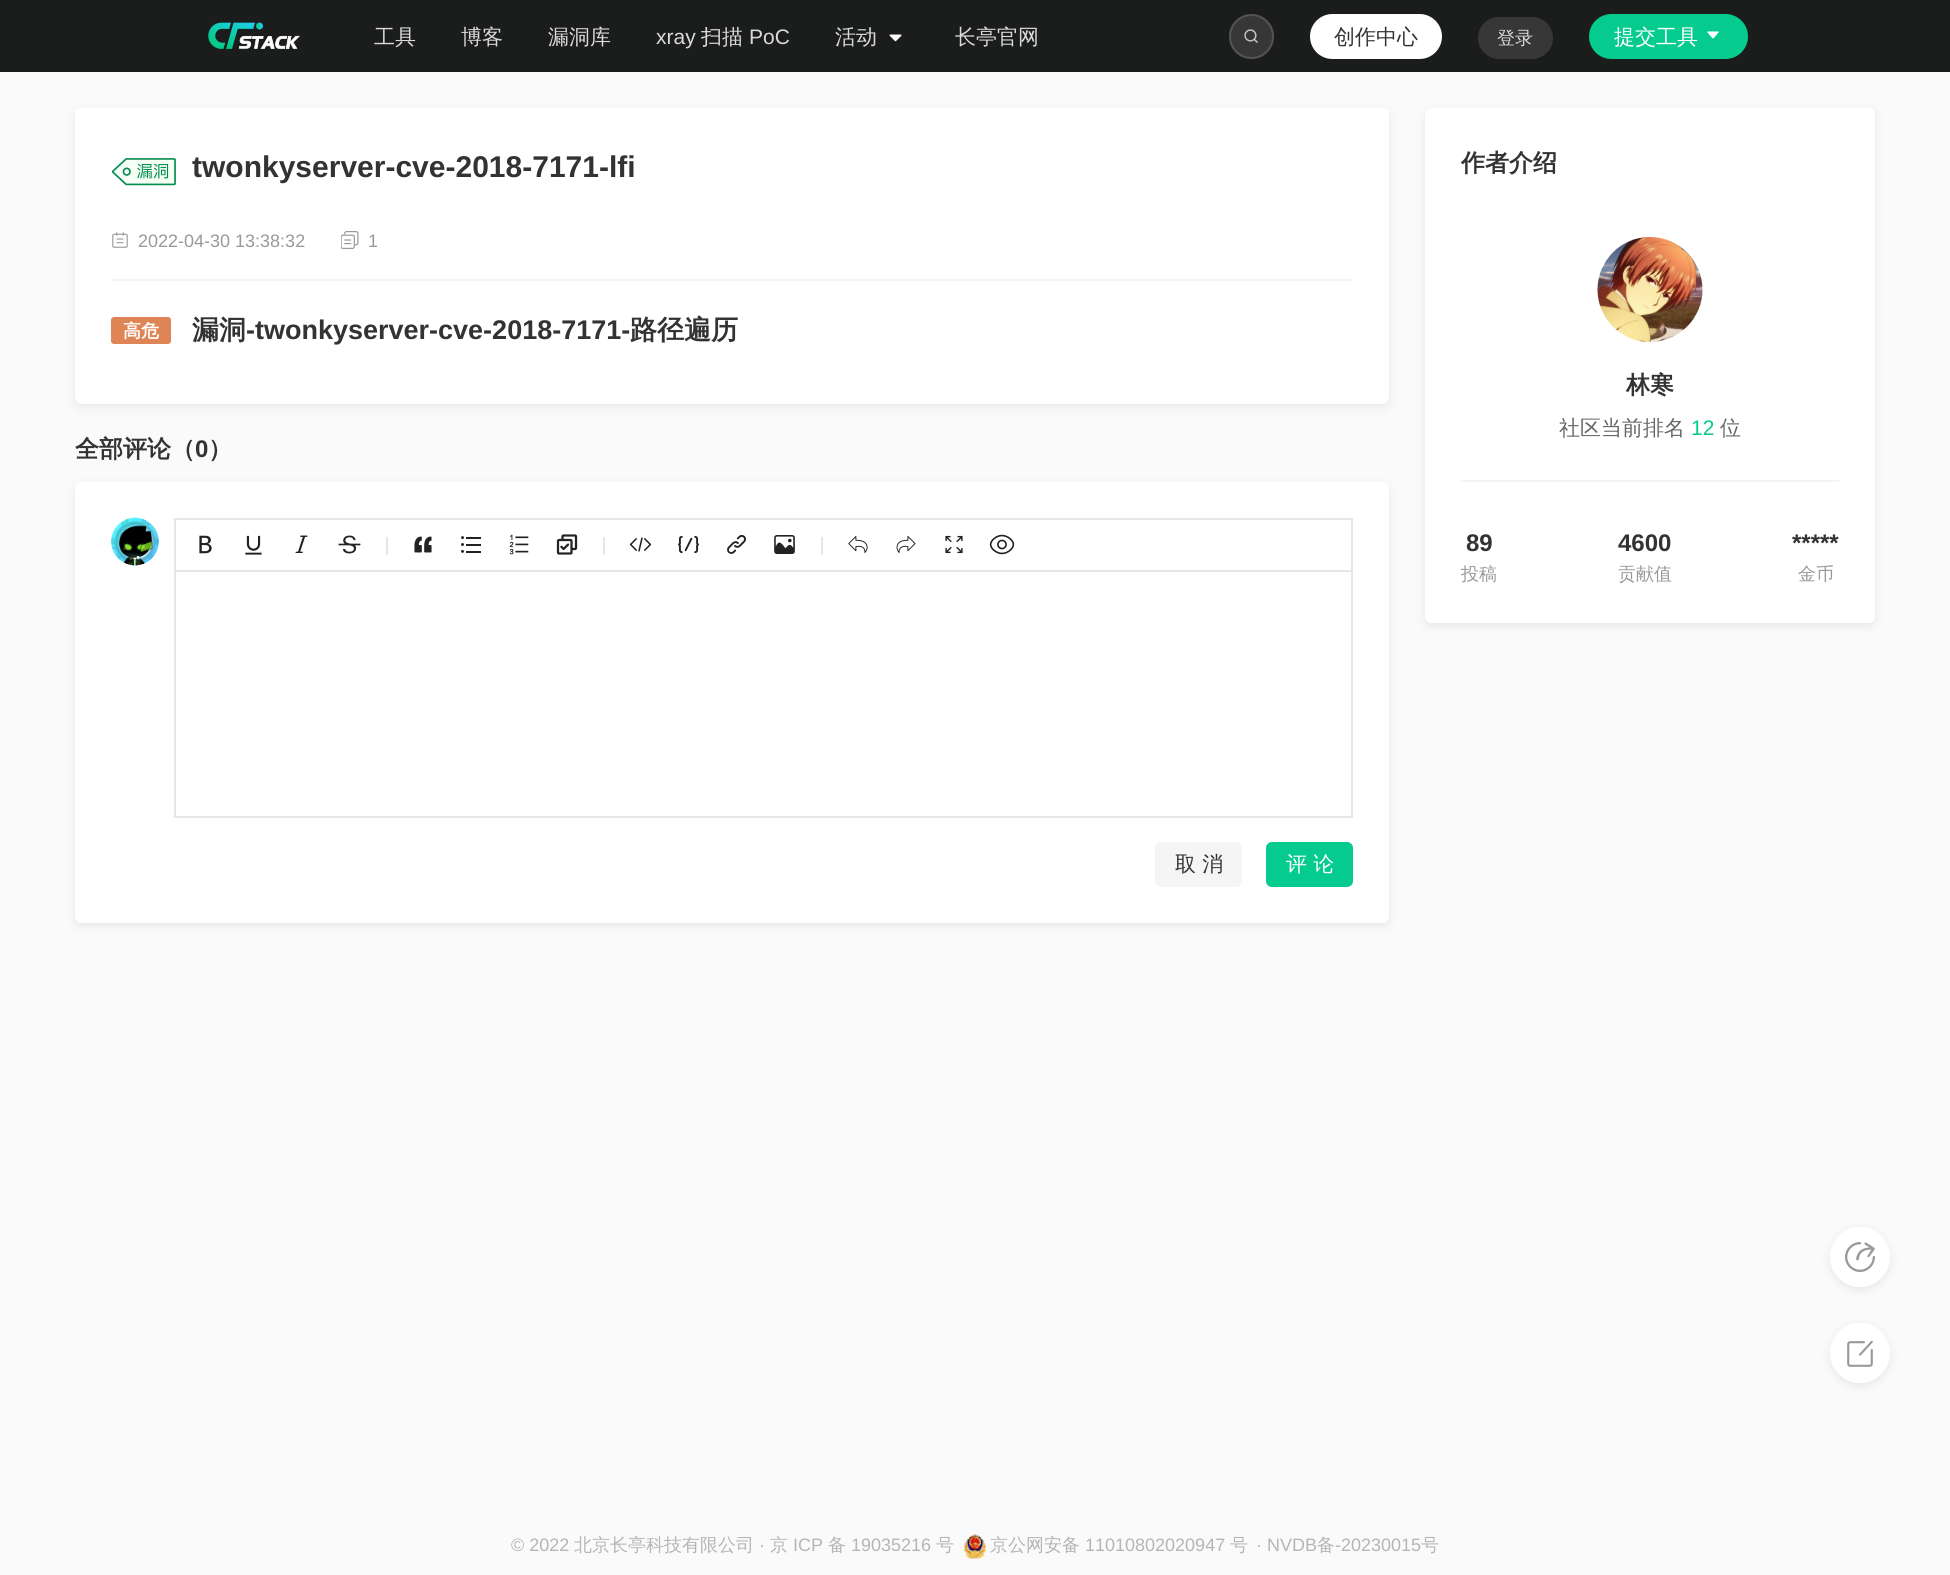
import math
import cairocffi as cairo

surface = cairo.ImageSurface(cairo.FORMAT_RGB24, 1950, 1575)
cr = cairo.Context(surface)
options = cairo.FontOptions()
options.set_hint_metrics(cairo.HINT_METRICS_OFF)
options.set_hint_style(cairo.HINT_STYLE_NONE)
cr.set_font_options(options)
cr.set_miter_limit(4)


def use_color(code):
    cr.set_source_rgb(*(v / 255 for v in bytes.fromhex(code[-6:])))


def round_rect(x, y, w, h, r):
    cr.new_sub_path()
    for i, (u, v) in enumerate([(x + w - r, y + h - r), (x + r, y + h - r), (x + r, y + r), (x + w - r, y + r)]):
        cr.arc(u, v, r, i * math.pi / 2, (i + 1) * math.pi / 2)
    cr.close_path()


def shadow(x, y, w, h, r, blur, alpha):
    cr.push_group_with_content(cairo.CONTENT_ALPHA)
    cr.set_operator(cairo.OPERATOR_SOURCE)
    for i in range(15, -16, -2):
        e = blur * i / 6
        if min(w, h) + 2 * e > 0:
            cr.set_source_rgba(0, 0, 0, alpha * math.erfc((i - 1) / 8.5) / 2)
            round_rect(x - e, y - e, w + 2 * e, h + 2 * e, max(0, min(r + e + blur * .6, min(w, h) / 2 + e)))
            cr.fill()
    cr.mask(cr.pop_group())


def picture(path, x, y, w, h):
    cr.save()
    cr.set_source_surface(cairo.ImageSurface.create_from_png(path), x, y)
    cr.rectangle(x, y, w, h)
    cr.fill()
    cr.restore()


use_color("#fafafa")
cr.paint()
use_color("#1b1c1c")
cr.rectangle(0, 0, 1950, 72)
cr.fill()
picture("img1.png", 208, 22, 92, 27)
cr.select_font_face("WenQuanYi Zen Hei Medium")
cr.set_font_size(21)
use_color("#dadada")
cr.move_to(374, 44)
cr.show_text("工具")
cr.move_to(461, 44)
cr.show_text("博客")
cr.move_to(548, 44)
cr.show_text("漏洞库")
cr.select_font_face("Liberation Sans")
cr.move_to(656, 44)
cr.show_text("xray")
cr.select_font_face("WenQuanYi Zen Hei Medium")
cr.move_to(701, 44)
cr.show_text("扫描")
cr.select_font_face("Liberation Sans")
cr.move_to(749, 44)
cr.show_text("PoC")
cr.select_font_face("WenQuanYi Zen Hei Medium")
cr.move_to(835, 44)
cr.show_text("活动")
picture("img2.png", 889, 34, 13, 8)
cr.move_to(955, 44)
cr.show_text("长亭官网")
use_color("#373737")
cr.new_path()
cr.arc(1251.5, 36.5, 22.5, 0, 2 * math.pi)
cr.fill()
cr.arc(1251.5, 36.5, 21.5, 0, 2 * math.pi)
cr.set_source_rgba(0.4, 0.4, 0.4, 0.6)
cr.stroke()
picture("img3.png", 1244, 29, 14, 14)
use_color("#ffffff")
round_rect(1310, 14, 132, 45, 22.5)
cr.fill()
use_color("#333333")
cr.move_to(1334, 44)
cr.show_text("创作中心")
use_color("#373737")
round_rect(1478, 17, 75, 42, 21)
cr.fill()
cr.set_font_size(18)
use_color("#dadada")
cr.move_to(1497, 44)
cr.show_text("登录")
use_color("#06cb8e")
round_rect(1590, 15, 157, 43, 21.5)
cr.fill_preserve()
cr.stroke()
cr.set_font_size(21)
use_color("#ffffff")
cr.move_to(1614, 44)
cr.show_text("提交工具")
picture("img4.png", 1707, 31, 12, 8)
use_color("#d4d4d4")
shadow(75, 111, 1314, 296, 6, 4.5, 0.5)
use_color("#ffffff")
round_rect(75, 108, 1314, 296, 6)
cr.fill()
picture("img5.png", 111, 158, 65, 28)
cr.select_font_face("Liberation Sans", cairo.FONT_SLANT_NORMAL, cairo.FONT_WEIGHT_BOLD)
cr.set_font_size(30)
use_color("#333333")
cr.move_to(192, 177)
cr.show_text("twonkyserver-cve-2018-7171-lfi")
picture("img6.png", 112, 232, 16, 16)
cr.select_font_face("Liberation Sans")
cr.set_font_size(18)
use_color("#999999")
cr.move_to(138, 247)
cr.show_text("2022-04-30 13:38:32")
picture("img7.png", 341, 231, 18, 18)
cr.move_to(368, 247)
cr.show_text("1")
use_color("#f4f4f4")
cr.rectangle(111, 279, 1242, 2)
cr.fill()
use_color("#df8555")
round_rect(111, 317, 60, 27, 3)
cr.fill()
cr.select_font_face("WenQuanYi Zen Hei", cairo.FONT_SLANT_NORMAL, cairo.FONT_WEIGHT_BOLD)
use_color("#ffffff")
cr.move_to(123, 337)
cr.show_text("高危")
cr.set_font_size(27)
use_color("#333333")
cr.move_to(192, 339)
cr.show_text("漏洞")
cr.select_font_face("Liberation Sans", cairo.FONT_SLANT_NORMAL, cairo.FONT_WEIGHT_BOLD)
cr.move_to(246, 339)
cr.show_text("-twonkyserver-cve-2018-7171-")
cr.select_font_face("WenQuanYi Zen Hei", cairo.FONT_SLANT_NORMAL, cairo.FONT_WEIGHT_BOLD)
cr.move_to(630, 339)
cr.show_text("路径遍历")
cr.set_font_size(24)
cr.move_to(75, 457)
cr.show_text("全部评论（")
cr.select_font_face("Liberation Sans", cairo.FONT_SLANT_NORMAL, cairo.FONT_WEIGHT_BOLD)
cr.move_to(195, 457)
cr.show_text("0")
cr.select_font_face("WenQuanYi Zen Hei", cairo.FONT_SLANT_NORMAL, cairo.FONT_WEIGHT_BOLD)
cr.move_to(208, 457)
cr.show_text("）")
use_color("#d4d4d4")
shadow(75, 485, 1314, 441, 6, 4.5, 0.5)
use_color("#ffffff")
round_rect(75, 482, 1314, 441, 6)
cr.fill()
picture("img8.png", 110, 517, 50, 49)
cr.rectangle(175, 519, 1177, 298)
use_color("#e6e6e6")
cr.stroke()
cr.rectangle(176, 570, 1176, 2)
cr.fill()
picture("img9.png", 199, 535, 13, 19)
picture("img10.png", 245, 535, 17, 20)
picture("img11.png", 295, 535, 13, 18)
picture("img12.png", 338, 535, 23, 19)
cr.rectangle(386, 537, 2, 18)
cr.fill()
picture("img13.png", 414, 536, 18, 17)
picture("img14.png", 461, 536, 20, 17)
picture("img15.png", 509, 534, 20, 21)
picture("img16.png", 556, 534, 22, 21)
cr.rectangle(603, 537, 2, 18)
cr.fill()
picture("img17.png", 629, 537, 23, 15)
picture("img18.png", 678, 535, 21, 19)
picture("img19.png", 727, 535, 19, 19)
picture("img20.png", 774, 535, 21, 19)
cr.rectangle(821, 537, 2, 18)
cr.fill()
picture("img21.png", 848, 536, 20, 17)
picture("img22.png", 896, 536, 20, 17)
picture("img23.png", 945, 535, 18, 19)
picture("img24.png", 989, 534, 26, 21)
use_color("#f5f5f5")
round_rect(1155, 842, 87, 45, 6)
cr.fill()
cr.select_font_face("WenQuanYi Zen Hei Medium")
cr.set_font_size(21)
use_color("#333333")
cr.move_to(1175, 871)
cr.show_text("取 消")
use_color("#06cb8e")
round_rect(1267, 843, 85, 43, 5)
cr.fill_preserve()
cr.stroke()
use_color("#ffffff")
cr.move_to(1286, 871)
cr.show_text("评 论")
use_color("#d4d4d4")
shadow(1425, 111, 450, 515, 6, 4.5, 0.5)
use_color("#ffffff")
round_rect(1425, 108, 450, 515, 6)
cr.fill()
cr.select_font_face("WenQuanYi Zen Hei", cairo.FONT_SLANT_NORMAL, cairo.FONT_WEIGHT_BOLD)
cr.set_font_size(24)
use_color("#333333")
cr.move_to(1461, 171)
cr.show_text("作者介绍")
use_color("#f4f4f4")
cr.rectangle(1461, 480, 378, 2)
cr.fill()
picture("img25.png", 1597, 237, 106, 105)
use_color("#333333")
cr.move_to(1626, 393)
cr.show_text("林寒")
cr.select_font_face("WenQuanYi Zen Hei Medium")
cr.set_font_size(21)
use_color("#666666")
cr.move_to(1559, 435)
cr.show_text("社区当前排名")
cr.select_font_face("Liberation Sans")
use_color("#06cb8e")
cr.move_to(1691, 435)
cr.show_text("12")
cr.select_font_face("WenQuanYi Zen Hei Medium")
use_color("#666666")
cr.move_to(1720, 435)
cr.show_text("位")
cr.select_font_face("Liberation Sans", cairo.FONT_SLANT_NORMAL, cairo.FONT_WEIGHT_BOLD)
cr.set_font_size(24)
use_color("#333333")
cr.move_to(1466, 551)
cr.show_text("89")
cr.select_font_face("WenQuanYi Zen Hei Medium")
cr.set_font_size(18)
use_color("#999999")
cr.move_to(1461, 580)
cr.show_text("投稿")
cr.select_font_face("Liberation Sans", cairo.FONT_SLANT_NORMAL, cairo.FONT_WEIGHT_BOLD)
cr.set_font_size(24)
use_color("#333333")
cr.move_to(1618, 551)
cr.show_text("4600")
cr.select_font_face("WenQuanYi Zen Hei Medium")
cr.set_font_size(18)
use_color("#999999")
cr.move_to(1618, 580)
cr.show_text("贡献值")
cr.select_font_face("Liberation Sans", cairo.FONT_SLANT_NORMAL, cairo.FONT_WEIGHT_BOLD)
cr.set_font_size(24)
use_color("#333333")
cr.move_to(1792, 551)
cr.show_text("*****")
cr.select_font_face("WenQuanYi Zen Hei Medium")
cr.set_font_size(18)
use_color("#999999")
cr.move_to(1798, 580)
cr.show_text("金币")
use_color("#d4d4d4")
shadow(1830, 1230, 60, 60, 30, 4.5, 0.5)
use_color("#ffffff")
cr.arc(1860, 1257, 30, 0, 2 * math.pi)
cr.fill()
picture("img26.png", 1845, 1242, 30, 30)
use_color("#d4d4d4")
shadow(1830, 1326, 60, 60, 30, 4.5, 0.5)
use_color("#ffffff")
cr.arc(1860, 1353, 30, 0, 2 * math.pi)
cr.fill()
picture("img27.png", 1847, 1340, 26, 27)
cr.select_font_face("Liberation Sans")
use_color("#b5b5b5")
cr.move_to(511, 1551)
cr.show_text("© 2022")
cr.select_font_face("WenQuanYi Zen Hei Medium")
cr.move_to(574, 1551)
cr.show_text("北京长亭科技有限公司")
cr.select_font_face("Liberation Sans")
cr.move_to(759, 1551)
cr.show_text("·")
cr.select_font_face("WenQuanYi Zen Hei Medium")
cr.move_to(770, 1551)
cr.show_text("京")
cr.select_font_face("Liberation Sans")
cr.move_to(793, 1551)
cr.show_text("ICP")
cr.select_font_face("WenQuanYi Zen Hei Medium")
cr.move_to(828, 1551)
cr.show_text("备")
cr.select_font_face("Liberation Sans")
cr.move_to(851, 1551)
cr.show_text("19035216")
cr.select_font_face("WenQuanYi Zen Hei Medium")
cr.move_to(936, 1551)
cr.show_text("号")
picture("img28.png", 964, 1534, 22, 25)
cr.move_to(990, 1551)
cr.show_text("京公网安备")
cr.select_font_face("Liberation Sans")
cr.move_to(1085, 1551)
cr.show_text("11010802020947")
cr.select_font_face("WenQuanYi Zen Hei Medium")
cr.move_to(1230, 1551)
cr.show_text("号")
cr.select_font_face("Liberation Sans")
cr.move_to(1256, 1551)
cr.show_text("· NVDB")
cr.select_font_face("WenQuanYi Zen Hei Medium")
cr.move_to(1317, 1551)
cr.show_text("备")
cr.select_font_face("Liberation Sans")
cr.move_to(1335, 1551)
cr.show_text("-20230015")
cr.select_font_face("WenQuanYi Zen Hei Medium")
cr.move_to(1421, 1551)
cr.show_text("号")
surface.write_to_png("result.png")
